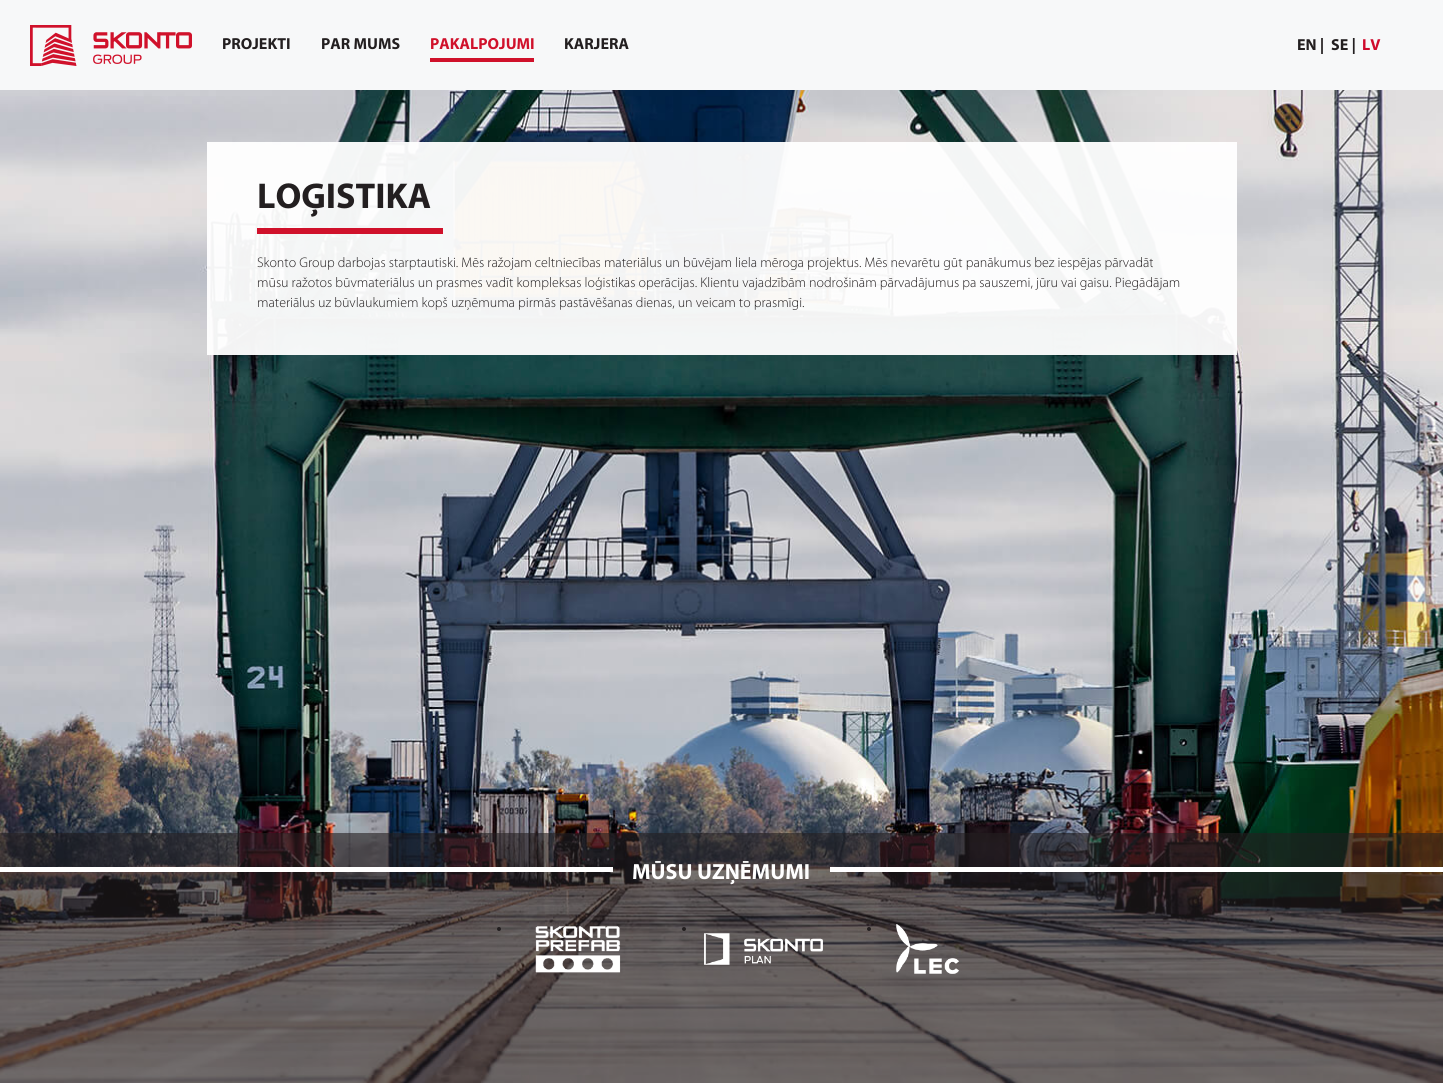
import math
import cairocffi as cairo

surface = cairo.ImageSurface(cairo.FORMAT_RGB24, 1443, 1083)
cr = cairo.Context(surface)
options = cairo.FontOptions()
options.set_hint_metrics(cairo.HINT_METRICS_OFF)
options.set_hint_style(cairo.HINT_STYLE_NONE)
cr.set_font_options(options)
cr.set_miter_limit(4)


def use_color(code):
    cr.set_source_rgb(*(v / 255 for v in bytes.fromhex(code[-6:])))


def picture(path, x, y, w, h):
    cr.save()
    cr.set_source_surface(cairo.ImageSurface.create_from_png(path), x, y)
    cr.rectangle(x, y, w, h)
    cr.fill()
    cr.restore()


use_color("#ffffff")
cr.paint()
use_color("#f7f8f9")
cr.rectangle(0, 0, 1443, 90)
cr.fill()
picture("img1.png", 30, 25, 162, 41)
cr.select_font_face("Myriad", cairo.FONT_SLANT_NORMAL, cairo.FONT_WEIGHT_BOLD)
cr.set_font_size(16)
use_color("#231f20")
cr.move_to(222, 49)
cr.show_text("PROJEKTI")
cr.move_to(321, 49)
cr.show_text("PAR MUMS")
use_color("#d0112b")
cr.move_to(430, 49)
cr.show_text("PAKALPOJUMI")
cr.rectangle(430, 58, 104, 4)
cr.fill()
use_color("#231f20")
cr.move_to(564, 49)
cr.show_text("KARJERA")
cr.move_to(1297, 50)
cr.show_text("EN |")
cr.move_to(1331, 50)
cr.show_text("SE |")
use_color("#cf0a2c")
cr.move_to(1362, 50)
cr.show_text("LV")
picture("img2.png", 0, 90, 1443, 993)
cr.set_source_rgba(1, 1, 1, 0.95)
cr.rectangle(207, 142, 1030, 213)
cr.fill()
cr.set_font_size(36)
use_color("#231f20")
cr.move_to(257, 208)
cr.show_text("LOĢISTIKA")
use_color("#d0112b")
cr.rectangle(257, 228, 186, 6)
cr.fill()
cr.select_font_face("Myriad Light")
cr.set_font_size(14)
use_color("#231f20")
cr.move_to(257, 267)
cr.show_text("Skonto Group darbojas starptautiski. Mēs ražojam celtniecības materiālus un būvējam liela mēroga projektus. Mēs nevarētu gūt panākumus bez iespējas pārvadāt")
cr.move_to(257, 287)
cr.show_text("mūsu ražotos būvmateriālus un prasmes vadīt kompleksas loģistikas operācijas. Klientu vajadzībām nodrošinām pārvadājumus pa sauszemi, jūru vai gaisu. Piegādājam")
cr.move_to(257, 307)
cr.show_text("materiālus uz būvlaukumiem kopš uzņēmuma pirmās pastāvēšanas dienas, un veicam to prasmīgi.")
cr.set_source_rgba(0.137, 0.122, 0.125, 0.6)
cr.rectangle(0, 833, 1443, 250)
cr.fill()
use_color("#ffffff")
cr.rectangle(0, 867, 613, 5)
cr.fill()
cr.select_font_face("Myriad", cairo.FONT_SLANT_NORMAL, cairo.FONT_WEIGHT_BOLD)
cr.set_font_size(22)
cr.move_to(632, 879)
cr.show_text("MŪSU UZŅĒMUMI")
cr.rectangle(830, 867, 613, 5)
cr.fill()
use_color("#231f20")
cr.arc(499, 929, 2, 0, 2 * math.pi)
cr.fill()
picture("img3.png", 535, 926, 86, 47)
cr.arc(684, 929, 2, 0, 2 * math.pi)
cr.fill()
picture("img4.png", 704, 933, 119, 32)
cr.arc(869, 929, 2, 0, 2 * math.pi)
cr.fill()
picture("img5.png", 896, 924, 64, 50)
surface.write_to_png("result.png")
